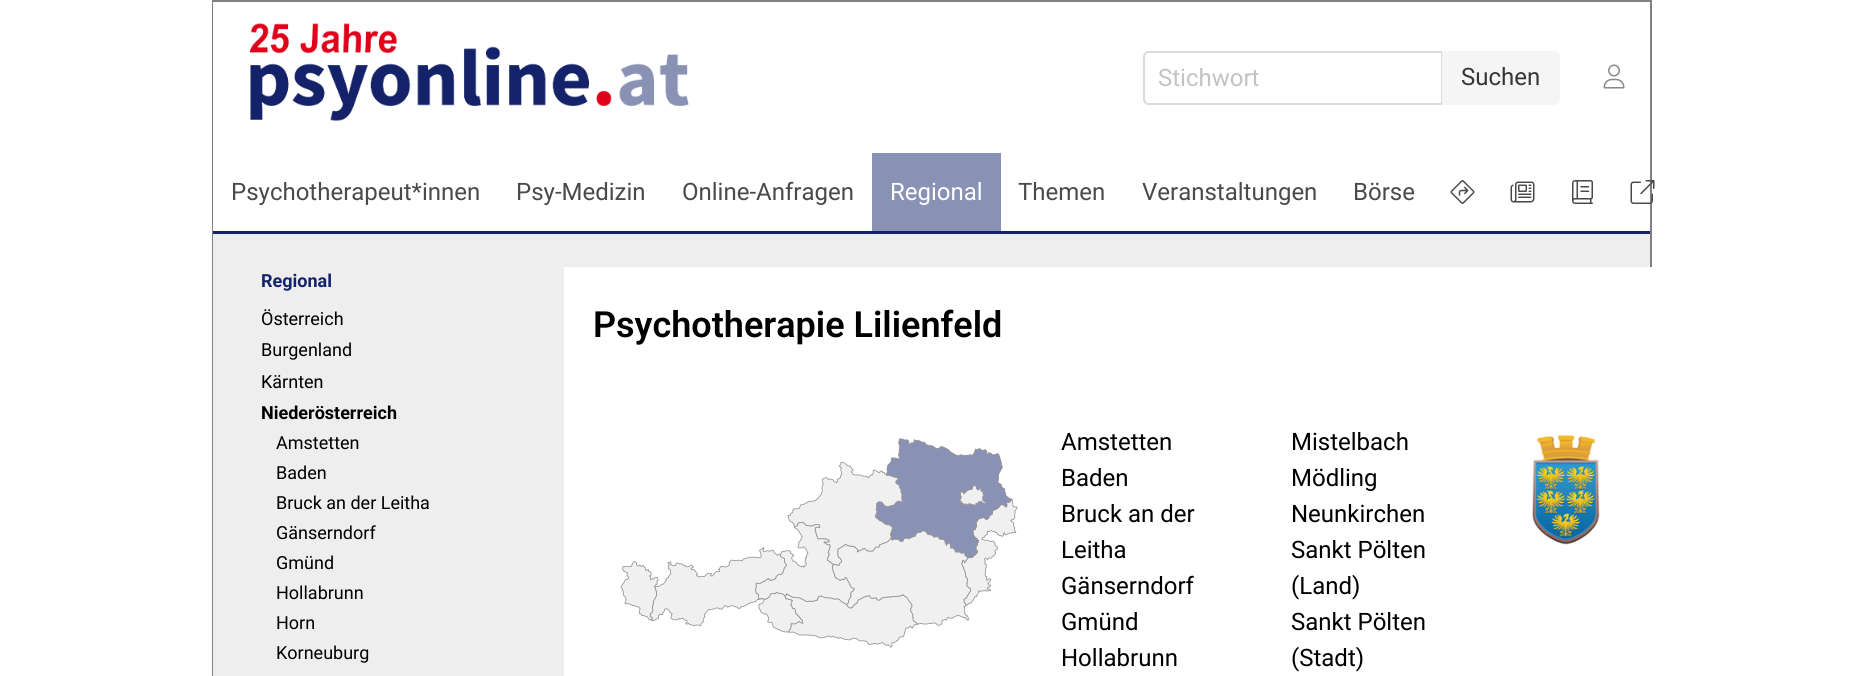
import math
import cairocffi as cairo

surface = cairo.ImageSurface(cairo.FORMAT_RGB24, 1863, 676)
cr = cairo.Context(surface)
options = cairo.FontOptions()
options.set_hint_metrics(cairo.HINT_METRICS_OFF)
options.set_hint_style(cairo.HINT_STYLE_NONE)
cr.set_font_options(options)
cr.set_miter_limit(4)


def use_color(code):
    cr.set_source_rgb(*(v / 255 for v in bytes.fromhex(code[-6:])))


def picture(path, x, y, w, h):
    cr.save()
    cr.set_source_surface(cairo.ImageSurface.create_from_png(path), x, y)
    cr.rectangle(x, y, w, h)
    cr.fill()
    cr.restore()


use_color("#ffffff")
cr.paint()
cr.rectangle(213, 1, 1438, 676)
use_color("#808080")
cr.stroke()
use_color("#ffffff")
cr.rectangle(213, 2, 1, 229)
cr.fill()
picture("img1.png", 249, 23, 440, 98)
cr.new_path()
cr.move_to(1149, 52)
cr.line_to(1442, 52)
cr.line_to(1442, 104)
cr.line_to(1149, 104)
cr.curve_to(1146, 104, 1144, 102, 1144, 99)
cr.line_to(1144, 57)
cr.curve_to(1144, 54, 1146, 52, 1149, 52)
cr.close_path()
use_color("#dbdbdb")
cr.stroke()
cr.select_font_face("Roboto")
cr.set_font_size(24)
use_color("#c3c3c3")
cr.move_to(1158, 86)
cr.show_text("Stichwort")
use_color("#f5f5f5")
cr.new_path()
cr.move_to(1442, 51)
cr.line_to(1554, 51)
cr.curve_to(1557.5, 51, 1560, 53.5, 1560, 57)
cr.line_to(1560, 99)
cr.curve_to(1560, 102.5, 1557.5, 105, 1554, 105)
cr.line_to(1442, 105)
cr.close_path()
cr.fill()
use_color("#363636")
cr.move_to(1461, 85)
cr.show_text("Suchen")
picture("img2.png", 1603, 64, 22, 25)
use_color("#4a4a4a")
cr.move_to(231, 200)
cr.show_text("Psychotherapeut*innen")
cr.move_to(516, 200)
cr.show_text("Psy-Medizin")
cr.move_to(682, 200)
cr.show_text("Online-Anfragen")
use_color("#8991b4")
cr.rectangle(872, 153, 129, 78)
cr.fill()
use_color("#ffffff")
cr.move_to(890, 200)
cr.show_text("Regional")
use_color("#4a4a4a")
cr.move_to(1018, 200)
cr.show_text("Themen")
cr.move_to(1142, 200)
cr.show_text("Veranstaltungen")
cr.move_to(1353, 200)
cr.show_text("Börse")
picture("img3.png", 1450, 180, 25, 24)
picture("img4.png", 1510, 181, 25, 22)
picture("img5.png", 1572, 180, 21, 24)
picture("img6.png", 1630, 180, 25, 24)
use_color("#142369")
cr.rectangle(213, 231, 1437, 3)
cr.fill()
use_color("#eeeeee")
cr.rectangle(213, 234, 1437, 442)
cr.fill()
cr.select_font_face("Roboto", cairo.FONT_SLANT_NORMAL, cairo.FONT_WEIGHT_BOLD)
cr.set_font_size(18)
use_color("#142369")
cr.move_to(261, 287)
cr.show_text("Regional")
cr.select_font_face("Roboto")
use_color("#000000")
cr.move_to(261, 325)
cr.show_text("Österreich")
cr.move_to(261, 356)
cr.show_text("Burgenland")
cr.move_to(261, 388)
cr.show_text("Kärnten")
cr.select_font_face("Roboto", cairo.FONT_SLANT_NORMAL, cairo.FONT_WEIGHT_BOLD)
cr.move_to(261, 419)
cr.show_text("Niederösterreich")
cr.select_font_face("Roboto")
cr.move_to(276, 449)
cr.show_text("Amstetten")
cr.move_to(276, 479)
cr.show_text("Baden")
cr.move_to(276, 509)
cr.show_text("Bruck an der Leitha")
cr.move_to(276, 539)
cr.show_text("Gänserndorf")
cr.move_to(276, 569)
cr.show_text("Gmünd")
cr.move_to(276, 599)
cr.show_text("Hollabrunn")
cr.move_to(276, 629)
cr.show_text("Horn")
cr.move_to(276, 659)
cr.show_text("Korneuburg")
use_color("#ffffff")
cr.rectangle(564, 267, 1088, 409)
cr.fill()
cr.select_font_face("Roboto SemiBold")
cr.set_font_size(36)
use_color("#000000")
cr.move_to(593, 337)
cr.show_text("Psychotherapie Lilienfeld")
picture("img7.png", 620, 438, 398, 210)
cr.select_font_face("Roboto")
cr.set_font_size(24)
cr.move_to(1061, 450)
cr.show_text("Amstetten")
cr.move_to(1061, 486)
cr.show_text("Baden")
cr.move_to(1061, 522)
cr.show_text("Bruck an der")
cr.move_to(1061, 558)
cr.show_text("Leitha")
cr.move_to(1061, 594)
cr.show_text("Gänserndorf")
cr.move_to(1061, 630)
cr.show_text("Gmünd")
cr.move_to(1061, 666)
cr.show_text("Hollabrunn")
cr.move_to(1291, 450)
cr.show_text("Mistelbach")
cr.move_to(1291, 486)
cr.show_text("Mödling")
cr.move_to(1291, 522)
cr.show_text("Neunkirchen")
cr.move_to(1291, 558)
cr.show_text("Sankt Pölten")
cr.move_to(1291, 594)
cr.show_text("(Land)")
cr.move_to(1291, 630)
cr.show_text("Sankt Pölten")
cr.move_to(1291, 666)
cr.show_text("(Stadt)")
picture("img8.png", 1532, 435, 68, 110)
surface.write_to_png("result.png")
